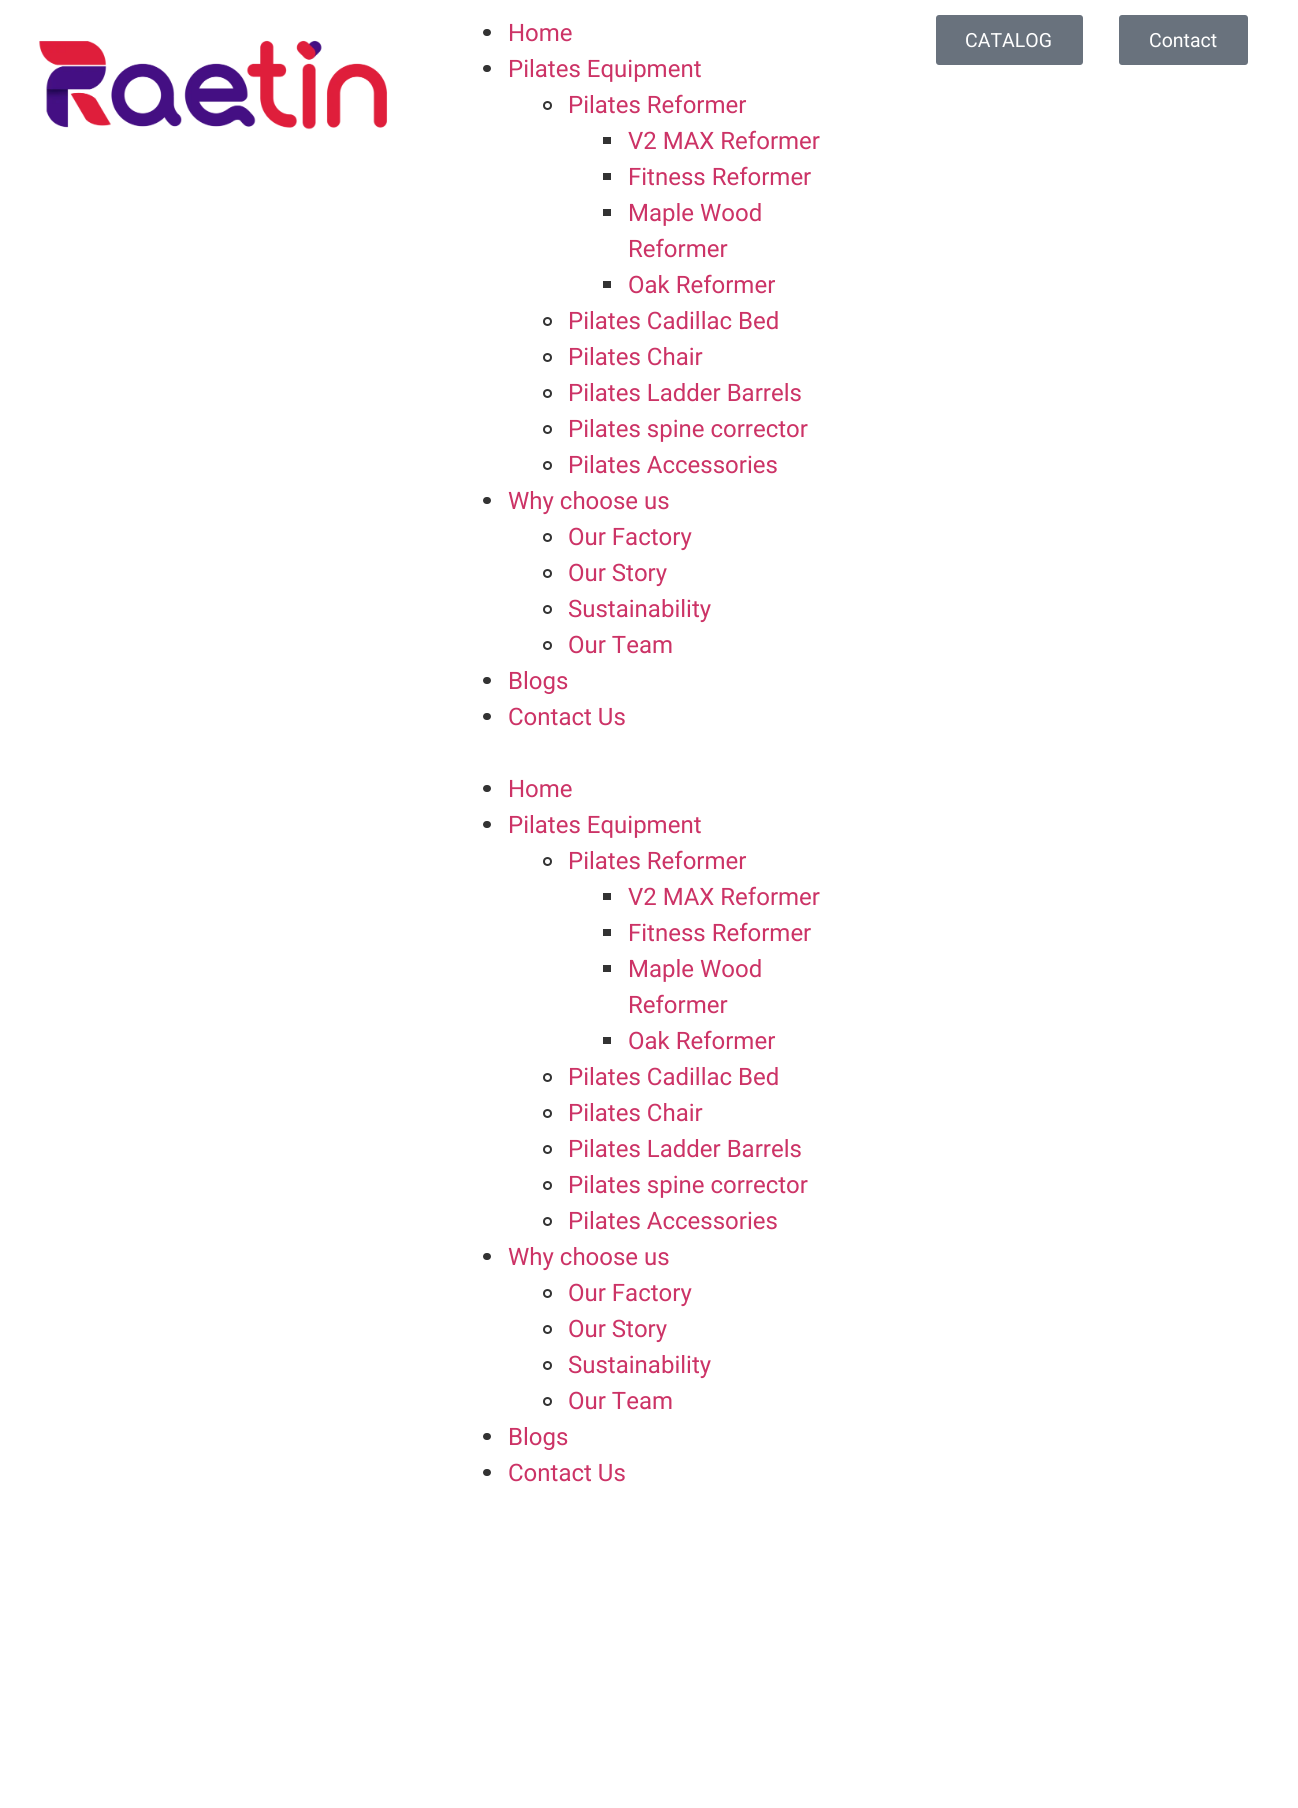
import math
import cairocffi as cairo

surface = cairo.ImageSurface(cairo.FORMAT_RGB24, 1298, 1808)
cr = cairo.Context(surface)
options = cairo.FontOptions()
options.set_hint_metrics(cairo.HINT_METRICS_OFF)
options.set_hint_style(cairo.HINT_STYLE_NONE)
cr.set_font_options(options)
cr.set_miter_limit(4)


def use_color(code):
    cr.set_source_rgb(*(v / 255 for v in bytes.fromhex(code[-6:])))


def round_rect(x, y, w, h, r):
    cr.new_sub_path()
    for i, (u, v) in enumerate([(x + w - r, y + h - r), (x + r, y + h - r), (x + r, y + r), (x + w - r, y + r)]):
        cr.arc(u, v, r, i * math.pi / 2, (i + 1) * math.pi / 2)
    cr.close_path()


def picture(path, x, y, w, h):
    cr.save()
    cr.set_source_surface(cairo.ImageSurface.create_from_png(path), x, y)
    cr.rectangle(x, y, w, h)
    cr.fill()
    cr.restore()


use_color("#ffffff")
cr.paint()
picture("img1.png", 39, 40, 349, 90)
use_color("#333333")
round_rect(483, 29, 8, 7, 3.5)
cr.fill()
cr.select_font_face("Roboto")
cr.set_font_size(24)
use_color("#cc3366")
cr.move_to(508, 41)
cr.show_text("Home")
use_color("#333333")
round_rect(483, 65, 8, 7, 3.5)
cr.fill()
use_color("#cc3366")
cr.move_to(508, 77)
cr.show_text("Pilates Equipment")
cr.new_path()
cr.arc(547.5, 105.5, 3.5, 0, 2 * math.pi)
use_color("#333333")
cr.stroke()
use_color("#cc3366")
cr.move_to(568, 113)
cr.show_text("Pilates Reformer")
use_color("#333333")
cr.rectangle(603, 137, 8, 7)
cr.fill()
use_color("#cc3366")
cr.move_to(628, 149)
cr.show_text("V2 MAX Reformer")
use_color("#333333")
cr.rectangle(603, 173, 8, 7)
cr.fill()
use_color("#cc3366")
cr.move_to(628, 185)
cr.show_text("Fitness Reformer")
use_color("#333333")
cr.rectangle(603, 209, 8, 7)
cr.fill()
use_color("#cc3366")
cr.move_to(628, 221)
cr.show_text("Maple Wood")
cr.move_to(628, 257)
cr.show_text("Reformer")
use_color("#333333")
cr.rectangle(603, 281, 8, 7)
cr.fill()
use_color("#cc3366")
cr.move_to(628, 293)
cr.show_text("Oak Reformer")
cr.new_path()
cr.arc(547.5, 321.5, 3.5, 0, 2 * math.pi)
use_color("#333333")
cr.stroke()
use_color("#cc3366")
cr.move_to(568, 329)
cr.show_text("Pilates Cadillac Bed")
cr.new_path()
cr.arc(547.5, 357.5, 3.5, 0, 2 * math.pi)
use_color("#333333")
cr.stroke()
use_color("#cc3366")
cr.move_to(568, 365)
cr.show_text("Pilates Chair")
cr.new_path()
cr.arc(547.5, 393.5, 3.5, 0, 2 * math.pi)
use_color("#333333")
cr.stroke()
use_color("#cc3366")
cr.move_to(568, 401)
cr.show_text("Pilates Ladder Barrels")
cr.new_path()
cr.arc(547.5, 429.5, 3.5, 0, 2 * math.pi)
use_color("#333333")
cr.stroke()
use_color("#cc3366")
cr.move_to(568, 437)
cr.show_text("Pilates spine corrector")
cr.new_path()
cr.arc(547.5, 465.5, 3.5, 0, 2 * math.pi)
use_color("#333333")
cr.stroke()
use_color("#cc3366")
cr.move_to(568, 473)
cr.show_text("Pilates Accessories")
use_color("#333333")
round_rect(483, 497, 8, 7, 3.5)
cr.fill()
use_color("#cc3366")
cr.move_to(508, 509)
cr.show_text("Why choose us")
cr.new_path()
cr.arc(547.5, 537.5, 3.5, 0, 2 * math.pi)
use_color("#333333")
cr.stroke()
use_color("#cc3366")
cr.move_to(568, 545)
cr.show_text("Our Factory")
cr.new_path()
cr.arc(547.5, 573.5, 3.5, 0, 2 * math.pi)
use_color("#333333")
cr.stroke()
use_color("#cc3366")
cr.move_to(568, 581)
cr.show_text("Our Story")
cr.new_path()
cr.arc(547.5, 609.5, 3.5, 0, 2 * math.pi)
use_color("#333333")
cr.stroke()
use_color("#cc3366")
cr.move_to(568, 617)
cr.show_text("Sustainability")
cr.new_path()
cr.arc(547.5, 645.5, 3.5, 0, 2 * math.pi)
use_color("#333333")
cr.stroke()
use_color("#cc3366")
cr.move_to(568, 653)
cr.show_text("Our Team")
use_color("#333333")
round_rect(483, 677, 8, 7, 3.5)
cr.fill()
use_color("#cc3366")
cr.move_to(508, 689)
cr.show_text("Blogs")
use_color("#333333")
round_rect(483, 713, 8, 7, 3.5)
cr.fill()
use_color("#cc3366")
cr.move_to(508, 725)
cr.show_text("Contact Us")
use_color("#333333")
round_rect(483, 785, 8, 7, 3.5)
cr.fill()
use_color("#cc3366")
cr.move_to(508, 797)
cr.show_text("Home")
use_color("#333333")
round_rect(483, 821, 8, 7, 3.5)
cr.fill()
use_color("#cc3366")
cr.move_to(508, 833)
cr.show_text("Pilates Equipment")
cr.new_path()
cr.arc(547.5, 861.5, 3.5, 0, 2 * math.pi)
use_color("#333333")
cr.stroke()
use_color("#cc3366")
cr.move_to(568, 869)
cr.show_text("Pilates Reformer")
use_color("#333333")
cr.rectangle(603, 893, 8, 7)
cr.fill()
use_color("#cc3366")
cr.move_to(628, 905)
cr.show_text("V2 MAX Reformer")
use_color("#333333")
cr.rectangle(603, 929, 8, 7)
cr.fill()
use_color("#cc3366")
cr.move_to(628, 941)
cr.show_text("Fitness Reformer")
use_color("#333333")
cr.rectangle(603, 965, 8, 7)
cr.fill()
use_color("#cc3366")
cr.move_to(628, 977)
cr.show_text("Maple Wood")
cr.move_to(628, 1013)
cr.show_text("Reformer")
use_color("#333333")
cr.rectangle(603, 1037, 8, 7)
cr.fill()
use_color("#cc3366")
cr.move_to(628, 1049)
cr.show_text("Oak Reformer")
cr.new_path()
cr.arc(547.5, 1077.5, 3.5, 0, 2 * math.pi)
use_color("#333333")
cr.stroke()
use_color("#cc3366")
cr.move_to(568, 1085)
cr.show_text("Pilates Cadillac Bed")
cr.new_path()
cr.arc(547.5, 1113.5, 3.5, 0, 2 * math.pi)
use_color("#333333")
cr.stroke()
use_color("#cc3366")
cr.move_to(568, 1121)
cr.show_text("Pilates Chair")
cr.new_path()
cr.arc(547.5, 1149.5, 3.5, 0, 2 * math.pi)
use_color("#333333")
cr.stroke()
use_color("#cc3366")
cr.move_to(568, 1157)
cr.show_text("Pilates Ladder Barrels")
cr.new_path()
cr.arc(547.5, 1185.5, 3.5, 0, 2 * math.pi)
use_color("#333333")
cr.stroke()
use_color("#cc3366")
cr.move_to(568, 1193)
cr.show_text("Pilates spine corrector")
cr.new_path()
cr.arc(547.5, 1221.5, 3.5, 0, 2 * math.pi)
use_color("#333333")
cr.stroke()
use_color("#cc3366")
cr.move_to(568, 1229)
cr.show_text("Pilates Accessories")
use_color("#333333")
round_rect(483, 1253, 8, 7, 3.5)
cr.fill()
use_color("#cc3366")
cr.move_to(508, 1265)
cr.show_text("Why choose us")
cr.new_path()
cr.arc(547.5, 1293.5, 3.5, 0, 2 * math.pi)
use_color("#333333")
cr.stroke()
use_color("#cc3366")
cr.move_to(568, 1301)
cr.show_text("Our Factory")
cr.new_path()
cr.arc(547.5, 1329.5, 3.5, 0, 2 * math.pi)
use_color("#333333")
cr.stroke()
use_color("#cc3366")
cr.move_to(568, 1337)
cr.show_text("Our Story")
cr.new_path()
cr.arc(547.5, 1365.5, 3.5, 0, 2 * math.pi)
use_color("#333333")
cr.stroke()
use_color("#cc3366")
cr.move_to(568, 1373)
cr.show_text("Sustainability")
cr.new_path()
cr.arc(547.5, 1401.5, 3.5, 0, 2 * math.pi)
use_color("#333333")
cr.stroke()
use_color("#cc3366")
cr.move_to(568, 1409)
cr.show_text("Our Team")
use_color("#333333")
round_rect(483, 1433, 8, 7, 3.5)
cr.fill()
use_color("#cc3366")
cr.move_to(508, 1445)
cr.show_text("Blogs")
use_color("#333333")
round_rect(483, 1469, 8, 7, 3.5)
cr.fill()
use_color("#cc3366")
cr.move_to(508, 1481)
cr.show_text("Contact Us")
use_color("#69727d")
round_rect(936, 15, 147, 50, 3)
cr.fill()
cr.set_font_size(19.5)
use_color("#ffffff")
cr.move_to(965, 47)
cr.show_text("CATALOG")
use_color("#69727d")
round_rect(1119, 15, 129, 50, 3)
cr.fill()
use_color("#ffffff")
cr.move_to(1149, 47)
cr.show_text("Contact")
surface.write_to_png("result.png")
